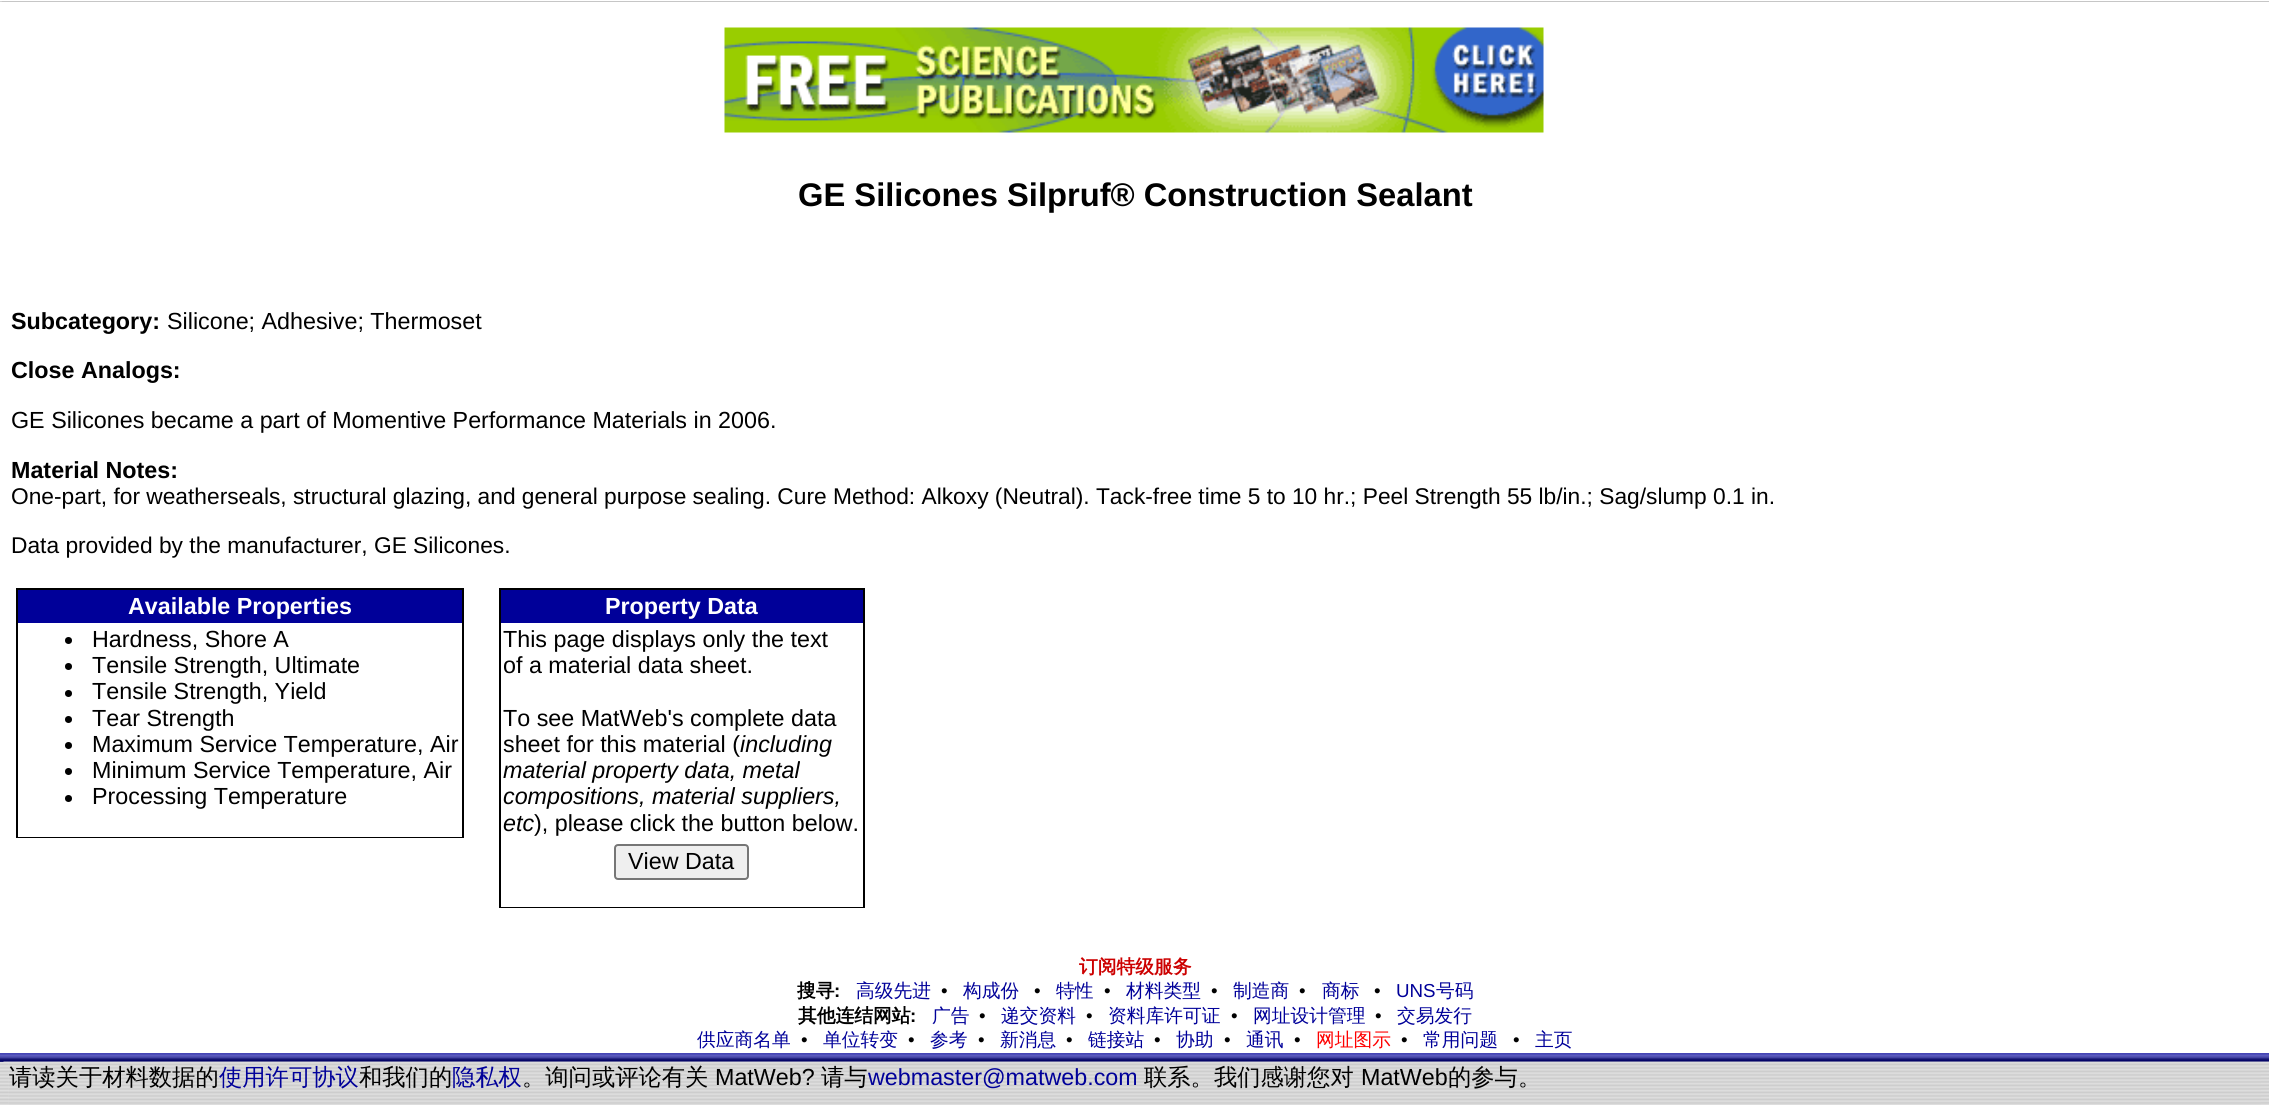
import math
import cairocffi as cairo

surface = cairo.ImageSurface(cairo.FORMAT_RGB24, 2269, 1105)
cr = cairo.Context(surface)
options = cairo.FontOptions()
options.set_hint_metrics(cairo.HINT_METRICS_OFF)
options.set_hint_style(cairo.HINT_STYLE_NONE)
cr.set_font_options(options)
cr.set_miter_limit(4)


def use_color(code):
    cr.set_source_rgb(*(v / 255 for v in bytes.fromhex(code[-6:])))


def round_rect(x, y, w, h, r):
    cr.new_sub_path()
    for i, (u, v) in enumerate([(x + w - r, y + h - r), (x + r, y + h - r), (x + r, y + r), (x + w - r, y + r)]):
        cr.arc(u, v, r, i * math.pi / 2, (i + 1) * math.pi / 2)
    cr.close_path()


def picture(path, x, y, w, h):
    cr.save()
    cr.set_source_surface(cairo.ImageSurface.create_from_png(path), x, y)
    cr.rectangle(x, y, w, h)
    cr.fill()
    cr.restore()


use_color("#ffffff")
cr.paint()
use_color("#999999")
cr.rectangle(0, 1, 2269, 1)
cr.fill()
picture("img1.png", 0, 0, 2269, 2)
picture("img2.png", 0, 1, 2, 1)
picture("img3.png", 724, 27, 820, 106)
cr.select_font_face("Liberation Sans", cairo.FONT_SLANT_NORMAL, cairo.FONT_WEIGHT_BOLD)
cr.set_font_size(32.7)
use_color("#000000")
cr.move_to(798, 206)
cr.show_text("GE Silicones Silpruf® Construction Sealant")
cr.set_font_size(23.3)
cr.move_to(11, 329)
cr.show_text("Subcategory:")
cr.select_font_face("Liberation Sans")
cr.move_to(167, 329)
cr.show_text("Silicone; Adhesive; Thermoset")
cr.select_font_face("Liberation Sans", cairo.FONT_SLANT_NORMAL, cairo.FONT_WEIGHT_BOLD)
cr.move_to(11, 378)
cr.show_text("Close Analogs:")
cr.select_font_face("Liberation Sans")
cr.move_to(11, 428)
cr.show_text("GE Silicones became a part of Momentive Performance Materials in 2006.")
cr.select_font_face("Liberation Sans", cairo.FONT_SLANT_NORMAL, cairo.FONT_WEIGHT_BOLD)
cr.move_to(11, 478)
cr.show_text("Material Notes:")
cr.select_font_face("Liberation Sans")
cr.set_font_size(22.75)
cr.move_to(11, 504)
cr.show_text("One-part, for weatherseals, structural glazing, and general purpose sealing. Cure Method: Alkoxy (Neutral). Tack-free time 5 to 10 hr.; Peel Strength 55 lb/in.; Sag/slump 0.1 in.")
cr.move_to(11, 553)
cr.show_text("Data provided by the manufacturer, GE Silicones.")
cr.rectangle(16, 588, 448, 250)
cr.fill()
use_color("#ffffff")
cr.rectangle(18, 623, 444, 214)
cr.fill()
use_color("#000099")
cr.rectangle(18, 590, 444, 33)
cr.fill()
cr.select_font_face("Liberation Sans", cairo.FONT_SLANT_NORMAL, cairo.FONT_WEIGHT_BOLD)
cr.set_font_size(23.3)
use_color("#ffffff")
cr.move_to(128, 614)
cr.show_text("Available Properties")
use_color("#000000")
cr.new_path()
cr.arc(68.5, 640.5, 3.5, 0, 2 * math.pi)
cr.fill()
cr.select_font_face("Liberation Sans")
cr.move_to(92, 647)
cr.show_text("Hardness, Shore A")
cr.new_path()
cr.arc(68.5, 666.5, 3.5, 0, 2 * math.pi)
cr.fill()
cr.move_to(92, 673)
cr.show_text("Tensile Strength, Ultimate")
cr.new_path()
cr.arc(68.5, 693.5, 3.5, 0, 2 * math.pi)
cr.fill()
cr.move_to(92, 699)
cr.show_text("Tensile Strength, Yield")
cr.new_path()
cr.arc(68.5, 719.5, 3.5, 0, 2 * math.pi)
cr.fill()
cr.move_to(92, 726)
cr.show_text("Tear Strength")
cr.new_path()
cr.arc(68.5, 745.5, 3.5, 0, 2 * math.pi)
cr.fill()
cr.move_to(92, 752)
cr.show_text("Maximum Service Temperature, Air")
cr.new_path()
cr.arc(68.5, 771.5, 3.5, 0, 2 * math.pi)
cr.fill()
cr.move_to(92, 778)
cr.show_text("Minimum Service Temperature, Air")
cr.new_path()
cr.arc(68.5, 798.5, 3.5, 0, 2 * math.pi)
cr.fill()
cr.move_to(92, 804)
cr.show_text("Processing Temperature")
cr.rectangle(499, 588, 366, 320)
cr.fill()
use_color("#ffffff")
cr.rectangle(501, 623, 362, 284)
cr.fill()
use_color("#000099")
cr.rectangle(501, 590, 362, 33)
cr.fill()
cr.select_font_face("Liberation Sans", cairo.FONT_SLANT_NORMAL, cairo.FONT_WEIGHT_BOLD)
use_color("#ffffff")
cr.move_to(605, 614)
cr.show_text("Property Data")
cr.select_font_face("Liberation Sans")
use_color("#000000")
cr.move_to(503, 647)
cr.show_text("This page displays only the text")
cr.move_to(503, 673)
cr.show_text("of a material data sheet.")
cr.move_to(503, 726)
cr.show_text("To see MatWeb's complete data")
cr.move_to(503, 752)
cr.show_text("sheet for this material (")
cr.select_font_face("Liberation Sans", cairo.FONT_SLANT_ITALIC)
cr.move_to(740, 752)
cr.show_text("including")
cr.move_to(503, 778)
cr.show_text("material property data, metal")
cr.move_to(503, 804)
cr.show_text("compositions, material suppliers,")
cr.move_to(503, 831)
cr.show_text("etc")
cr.select_font_face("Liberation Sans")
cr.move_to(534, 831)
cr.show_text("), please click the button below.")
use_color("#efefef")
round_rect(615, 845, 133, 34, 3)
cr.fill_preserve()
use_color("#767676")
cr.stroke()
use_color("#000000")
cr.move_to(628, 869)
cr.show_text("View Data")
cr.select_font_face("WenQuanYi Zen Hei", cairo.FONT_SLANT_NORMAL, cairo.FONT_WEIGHT_BOLD)
cr.set_font_size(18.75)
use_color("#cc0000")
cr.move_to(1079, 973)
cr.show_text("订阅特级服务")
use_color("#000000")
cr.move_to(797, 997)
cr.show_text("搜寻")
cr.select_font_face("Liberation Sans", cairo.FONT_SLANT_NORMAL, cairo.FONT_WEIGHT_BOLD)
cr.move_to(834, 997)
cr.show_text(":")
cr.select_font_face("WenQuanYi Zen Hei Medium")
use_color("#000099")
cr.move_to(856, 997)
cr.show_text("高级先进")
cr.select_font_face("Liberation Sans")
use_color("#000000")
cr.move_to(941, 997)
cr.show_text("•")
cr.select_font_face("WenQuanYi Zen Hei Medium")
use_color("#000099")
cr.move_to(963, 997)
cr.show_text("构成份")
cr.select_font_face("Liberation Sans")
use_color("#000000")
cr.move_to(1034, 997)
cr.show_text("•")
cr.select_font_face("WenQuanYi Zen Hei Medium")
use_color("#000099")
cr.move_to(1056, 997)
cr.show_text("特性")
cr.select_font_face("Liberation Sans")
use_color("#000000")
cr.move_to(1104, 997)
cr.show_text("•")
cr.select_font_face("WenQuanYi Zen Hei Medium")
use_color("#000099")
cr.move_to(1126, 997)
cr.show_text("材料类型")
cr.select_font_face("Liberation Sans")
use_color("#000000")
cr.move_to(1211, 997)
cr.show_text("•")
cr.select_font_face("WenQuanYi Zen Hei Medium")
use_color("#000099")
cr.move_to(1233, 997)
cr.show_text("制造商")
cr.select_font_face("Liberation Sans")
use_color("#000000")
cr.move_to(1299, 997)
cr.show_text("•")
cr.select_font_face("WenQuanYi Zen Hei Medium")
use_color("#000099")
cr.move_to(1322, 997)
cr.show_text("商标")
cr.select_font_face("Liberation Sans")
use_color("#000000")
cr.move_to(1374, 997)
cr.show_text("•")
use_color("#000099")
cr.move_to(1396, 997)
cr.show_text("UNS")
cr.select_font_face("WenQuanYi Zen Hei Medium")
cr.move_to(1436, 997)
cr.show_text("号码")
cr.select_font_face("WenQuanYi Zen Hei", cairo.FONT_SLANT_NORMAL, cairo.FONT_WEIGHT_BOLD)
use_color("#000000")
cr.move_to(798, 1022)
cr.show_text("其他连结网站")
cr.select_font_face("Liberation Sans", cairo.FONT_SLANT_NORMAL, cairo.FONT_WEIGHT_BOLD)
cr.move_to(910, 1022)
cr.show_text(":")
cr.select_font_face("WenQuanYi Zen Hei Medium")
use_color("#000099")
cr.move_to(932, 1022)
cr.show_text("广告")
cr.select_font_face("Liberation Sans")
use_color("#000000")
cr.move_to(979, 1022)
cr.show_text("•")
cr.select_font_face("WenQuanYi Zen Hei Medium")
use_color("#000099")
cr.move_to(1001, 1022)
cr.show_text("递交资料")
cr.select_font_face("Liberation Sans")
use_color("#000000")
cr.move_to(1086, 1022)
cr.show_text("•")
cr.select_font_face("WenQuanYi Zen Hei Medium")
use_color("#000099")
cr.move_to(1108, 1022)
cr.show_text("资料库许可证")
cr.select_font_face("Liberation Sans")
use_color("#000000")
cr.move_to(1231, 1022)
cr.show_text("•")
cr.select_font_face("WenQuanYi Zen Hei Medium")
use_color("#000099")
cr.move_to(1253, 1022)
cr.show_text("网址设计管理")
cr.select_font_face("Liberation Sans")
use_color("#000000")
cr.move_to(1375, 1022)
cr.show_text("•")
cr.select_font_face("WenQuanYi Zen Hei Medium")
use_color("#000099")
cr.move_to(1397, 1022)
cr.show_text("交易发行")
cr.move_to(697, 1046)
cr.show_text("供应商名单")
cr.select_font_face("Liberation Sans")
use_color("#000000")
cr.move_to(801, 1046)
cr.show_text("•")
cr.select_font_face("WenQuanYi Zen Hei Medium")
use_color("#000099")
cr.move_to(823, 1046)
cr.show_text("单位转变")
cr.select_font_face("Liberation Sans")
use_color("#000000")
cr.move_to(908, 1046)
cr.show_text("•")
cr.select_font_face("WenQuanYi Zen Hei Medium")
use_color("#000099")
cr.move_to(930, 1046)
cr.show_text("参考")
cr.select_font_face("Liberation Sans")
use_color("#000000")
cr.move_to(978, 1046)
cr.show_text("•")
cr.select_font_face("WenQuanYi Zen Hei Medium")
use_color("#000099")
cr.move_to(1000, 1046)
cr.show_text("新消息")
cr.select_font_face("Liberation Sans")
use_color("#000000")
cr.move_to(1066, 1046)
cr.show_text("•")
cr.select_font_face("WenQuanYi Zen Hei Medium")
use_color("#000099")
cr.move_to(1088, 1046)
cr.show_text("链接站")
cr.select_font_face("Liberation Sans")
use_color("#000000")
cr.move_to(1154, 1046)
cr.show_text("•")
cr.select_font_face("WenQuanYi Zen Hei Medium")
use_color("#000099")
cr.move_to(1176, 1046)
cr.show_text("协助")
cr.select_font_face("Liberation Sans")
use_color("#000000")
cr.move_to(1224, 1046)
cr.show_text("•")
cr.select_font_face("WenQuanYi Zen Hei Medium")
use_color("#000099")
cr.move_to(1246, 1046)
cr.show_text("通讯")
cr.select_font_face("Liberation Sans")
use_color("#000000")
cr.move_to(1294, 1046)
cr.show_text("•")
cr.select_font_face("WenQuanYi Zen Hei Medium")
use_color("#ff0000")
cr.move_to(1316, 1046)
cr.show_text("网址图示")
cr.select_font_face("Liberation Sans")
use_color("#000000")
cr.move_to(1401, 1046)
cr.show_text("•")
cr.select_font_face("WenQuanYi Zen Hei Medium")
use_color("#000099")
cr.move_to(1423, 1046)
cr.show_text("常用问题")
cr.select_font_face("Liberation Sans")
use_color("#000000")
cr.move_to(1513, 1046)
cr.show_text("•")
cr.select_font_face("WenQuanYi Zen Hei Medium")
use_color("#000099")
cr.move_to(1535, 1046)
cr.show_text("主页")
picture("img4.png", 0, 1053, 2269, 9)
picture("img6.png", 0, 1061, 9, 44)
picture("img5.png", 0, 1061, 4, 1)
picture("img7.png", 8, 1061, 2253, 44)
cr.set_font_size(23.3)
use_color("#000000")
cr.move_to(9, 1085)
cr.show_text("请读关于材料数据的")
use_color("#000099")
cr.move_to(219, 1085)
cr.show_text("使用许可协议")
use_color("#000000")
cr.move_to(359, 1085)
cr.show_text("和我们的")
use_color("#000099")
cr.move_to(452, 1085)
cr.show_text("隐私权")
use_color("#000000")
cr.move_to(522, 1085)
cr.show_text("。询问或评论有关")
cr.select_font_face("Liberation Sans")
cr.move_to(715, 1085)
cr.show_text("MatWeb?")
cr.select_font_face("WenQuanYi Zen Hei Medium")
cr.move_to(821, 1085)
cr.show_text("请与")
cr.select_font_face("Liberation Sans")
use_color("#000099")
cr.move_to(868, 1085)
cr.show_text("webmaster@matweb.com")
cr.select_font_face("WenQuanYi Zen Hei Medium")
use_color("#000000")
cr.move_to(1144, 1085)
cr.show_text("联系。我们感谢您对")
cr.select_font_face("Liberation Sans")
cr.move_to(1361, 1085)
cr.show_text("MatWeb")
cr.select_font_face("WenQuanYi Zen Hei Medium")
cr.move_to(1448, 1085)
cr.show_text("的参与。")
picture("img8.png", 2261, 1061, 8, 44)
surface.write_to_png("result.png")
